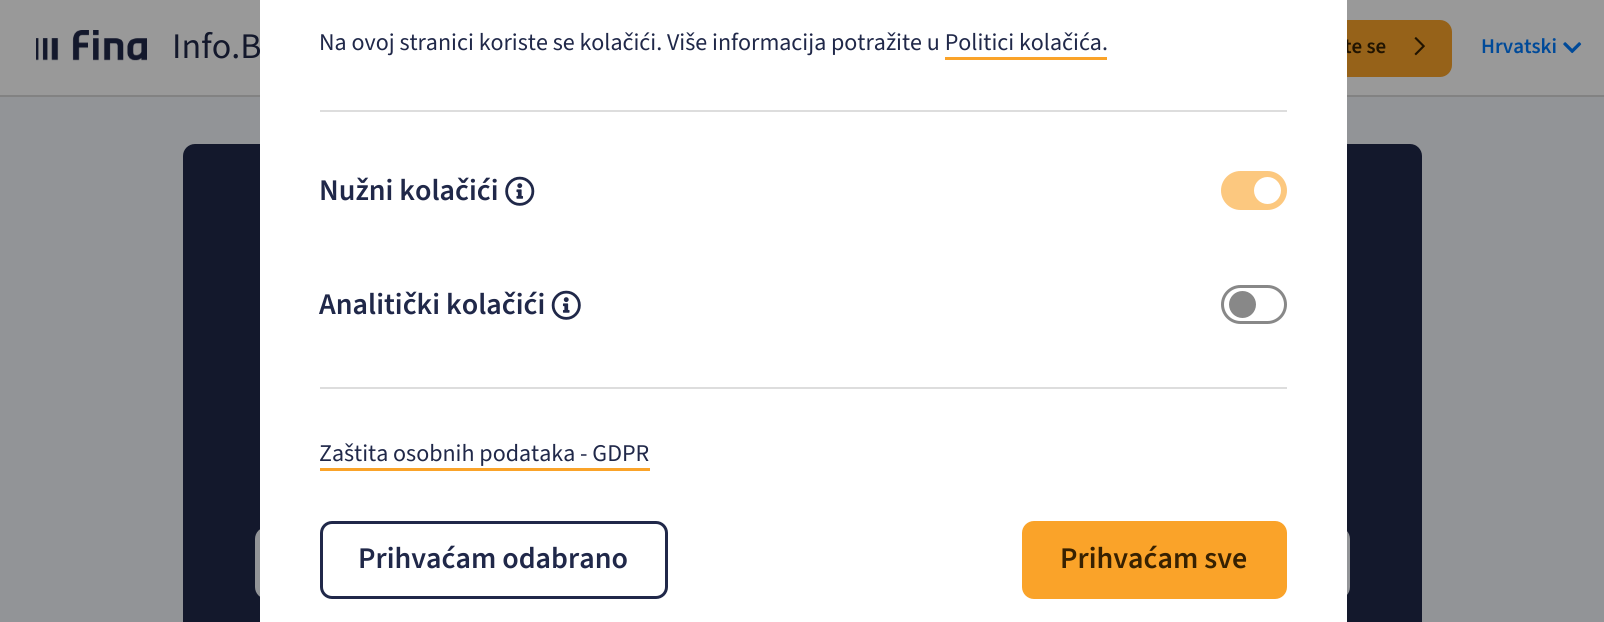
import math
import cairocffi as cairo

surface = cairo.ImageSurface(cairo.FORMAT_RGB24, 1604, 622)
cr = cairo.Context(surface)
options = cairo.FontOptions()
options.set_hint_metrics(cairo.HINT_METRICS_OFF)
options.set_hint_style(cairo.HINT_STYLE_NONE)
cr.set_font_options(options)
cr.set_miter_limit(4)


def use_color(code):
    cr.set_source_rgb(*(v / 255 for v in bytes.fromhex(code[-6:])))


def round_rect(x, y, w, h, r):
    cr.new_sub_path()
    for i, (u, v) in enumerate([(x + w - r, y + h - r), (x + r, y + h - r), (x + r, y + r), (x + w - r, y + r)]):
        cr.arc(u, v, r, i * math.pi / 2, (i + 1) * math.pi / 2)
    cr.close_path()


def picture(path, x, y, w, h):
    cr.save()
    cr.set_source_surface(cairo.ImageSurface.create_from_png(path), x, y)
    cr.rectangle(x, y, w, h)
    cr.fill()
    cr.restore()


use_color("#929497")
cr.paint()
use_color("#999999")
cr.rectangle(0, 0, 1604, 95)
cr.fill()
use_color("#828282")
cr.rectangle(0, 95, 1604, 2)
cr.fill()
picture("img1.png", 36, 30, 111, 31)
cr.select_font_face("Source Sans 3")
cr.set_font_size(36)
use_color("#13182c")
cr.move_to(172, 58)
cr.show_text("Info.B")
use_color("#966219")
round_rect(1261.5, 21.5, 189, 54, 10.5)
cr.fill_preserve()
cr.set_line_width(3)
cr.stroke()
cr.select_font_face("Source Sans 3 SemiBold")
cr.set_font_size(21)
use_color("#211401")
cr.move_to(1344, 53)
cr.show_text("te se")
picture("img2.png", 1414, 37, 11, 19)
use_color("#004a99")
cr.move_to(1481, 53)
cr.show_text("Hrvatski")
picture("img3.png", 1563, 42, 19, 12)
use_color("#13182c")
round_rect(183, 144, 1239, 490, 12)
cr.fill()
use_color("#929497")
round_rect(256, 528, 1093, 70, 11)
cr.fill_preserve()
cr.set_line_width(2)
cr.stroke()
use_color("#ffffff")
cr.rectangle(260, 0, 1087, 622)
cr.fill()
use_color("#dddddd")
cr.rectangle(320, 110, 967, 2)
cr.fill()
cr.select_font_face("Source Sans 3")
cr.set_font_size(24)
use_color("#202849")
cr.move_to(319, 50)
cr.show_text("Na ovoj stranici koriste se kolačići. Više informacija potražite u Politici kolačića.")
use_color("#faa329")
cr.rectangle(945, 57, 162, 3)
cr.fill()
cr.select_font_face("Source Sans 3 SemiBold")
cr.set_font_size(30)
use_color("#202849")
cr.move_to(319, 200)
cr.show_text("Nužni kolačići")
picture("img4.png", 505, 176, 30, 30)
use_color("#fcc87f")
round_rect(1221, 171, 66, 39, 19.5)
cr.fill()
use_color("#ffffff")
cr.arc(1267.5, 190.5, 13.5, 0, 2 * math.pi)
cr.fill()
use_color("#202849")
cr.move_to(319, 314)
cr.show_text("Analitički kolačići")
picture("img5.png", 551, 290, 30, 30)
round_rect(1222.5, 286.5, 63, 36, 18)
use_color("#888888")
cr.set_line_width(3)
cr.stroke()
cr.arc(1242.5, 304.5, 13.5, 0, 2 * math.pi)
cr.fill()
use_color("#dddddd")
cr.rectangle(320, 387, 967, 2)
cr.fill()
cr.select_font_face("Source Sans 3")
cr.set_font_size(24)
use_color("#202849")
cr.move_to(319, 461)
cr.show_text("Zaštita osobnih podataka - GDPR")
use_color("#faa329")
cr.rectangle(320, 468, 330, 3)
cr.fill()
round_rect(321.5, 522.5, 345, 75, 10.5)
use_color("#202849")
cr.stroke()
cr.select_font_face("Source Sans 3 SemiBold")
cr.set_font_size(30)
cr.move_to(358, 568)
cr.show_text("Prihvaćam odabrano")
use_color("#faa329")
round_rect(1023.5, 522.5, 262, 75, 10.5)
cr.fill_preserve()
cr.stroke()
use_color("#372101")
cr.move_to(1060, 568)
cr.show_text("Prihvaćam sve")
surface.write_to_png("result.png")
